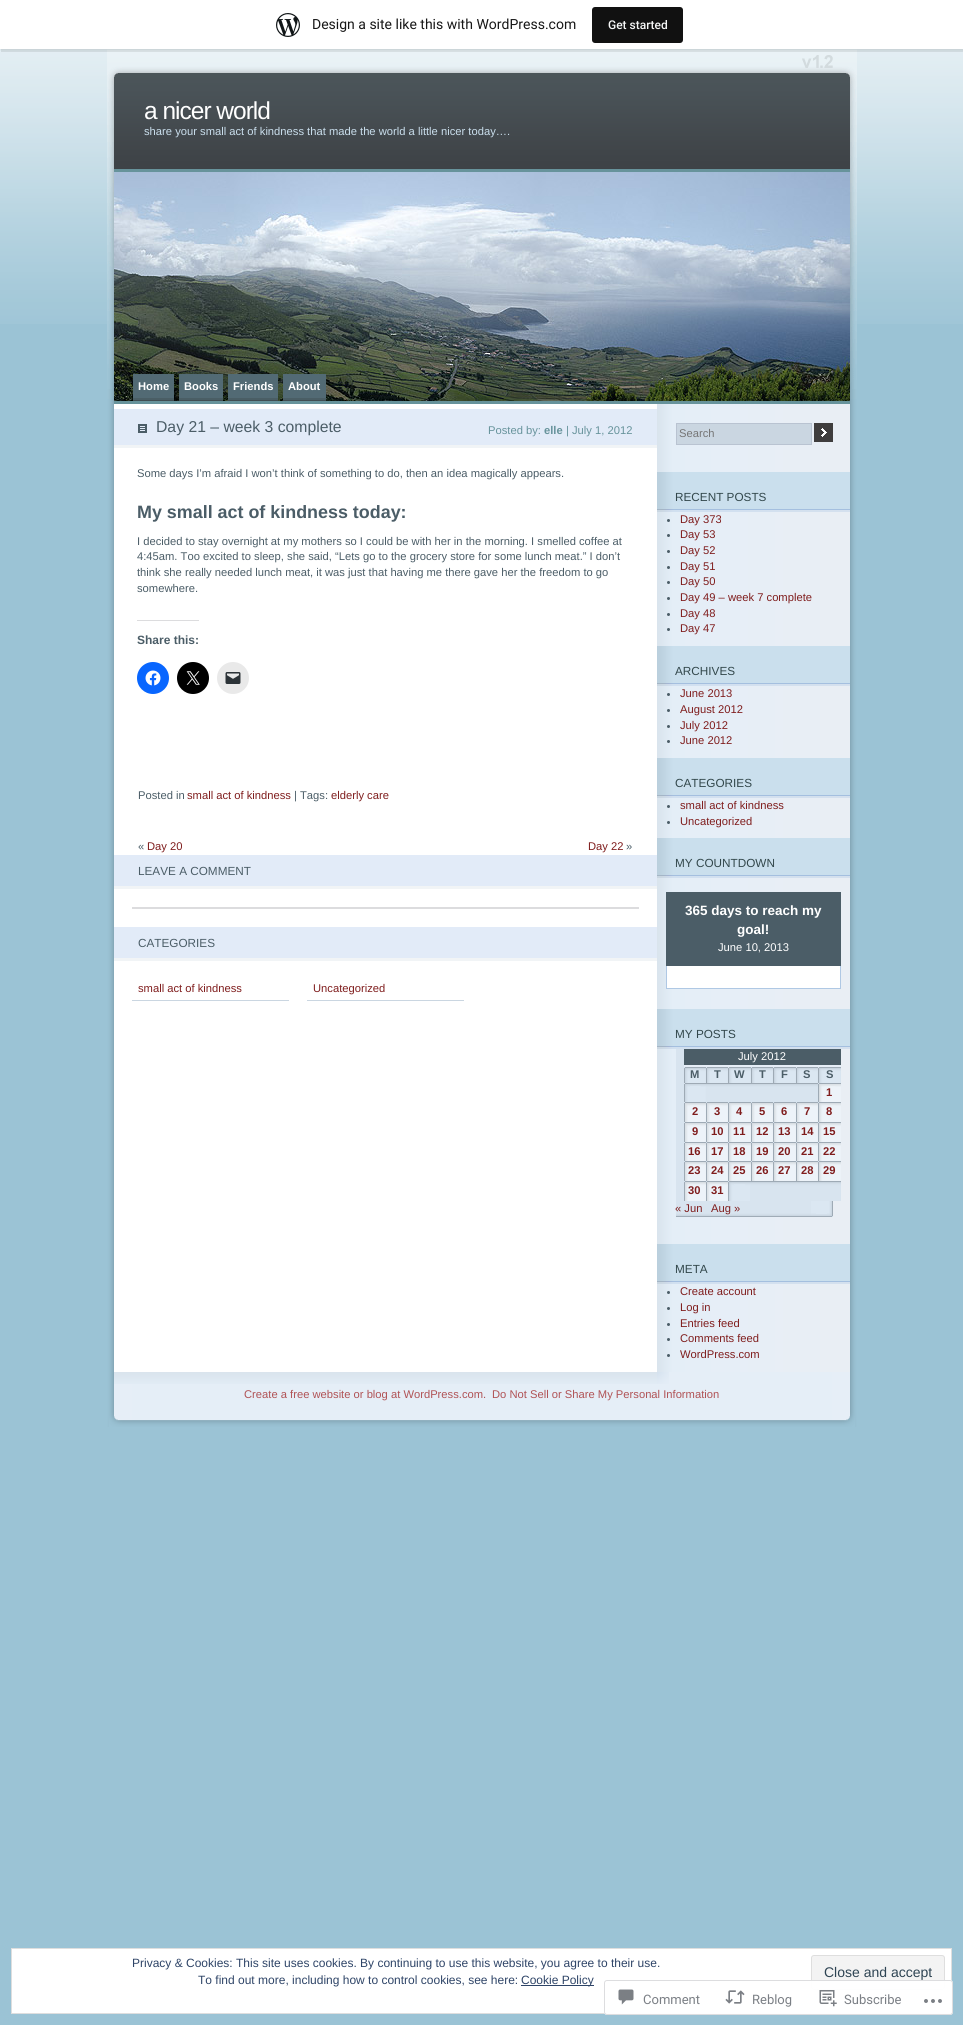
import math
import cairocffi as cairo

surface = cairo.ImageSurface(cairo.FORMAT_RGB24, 963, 2025)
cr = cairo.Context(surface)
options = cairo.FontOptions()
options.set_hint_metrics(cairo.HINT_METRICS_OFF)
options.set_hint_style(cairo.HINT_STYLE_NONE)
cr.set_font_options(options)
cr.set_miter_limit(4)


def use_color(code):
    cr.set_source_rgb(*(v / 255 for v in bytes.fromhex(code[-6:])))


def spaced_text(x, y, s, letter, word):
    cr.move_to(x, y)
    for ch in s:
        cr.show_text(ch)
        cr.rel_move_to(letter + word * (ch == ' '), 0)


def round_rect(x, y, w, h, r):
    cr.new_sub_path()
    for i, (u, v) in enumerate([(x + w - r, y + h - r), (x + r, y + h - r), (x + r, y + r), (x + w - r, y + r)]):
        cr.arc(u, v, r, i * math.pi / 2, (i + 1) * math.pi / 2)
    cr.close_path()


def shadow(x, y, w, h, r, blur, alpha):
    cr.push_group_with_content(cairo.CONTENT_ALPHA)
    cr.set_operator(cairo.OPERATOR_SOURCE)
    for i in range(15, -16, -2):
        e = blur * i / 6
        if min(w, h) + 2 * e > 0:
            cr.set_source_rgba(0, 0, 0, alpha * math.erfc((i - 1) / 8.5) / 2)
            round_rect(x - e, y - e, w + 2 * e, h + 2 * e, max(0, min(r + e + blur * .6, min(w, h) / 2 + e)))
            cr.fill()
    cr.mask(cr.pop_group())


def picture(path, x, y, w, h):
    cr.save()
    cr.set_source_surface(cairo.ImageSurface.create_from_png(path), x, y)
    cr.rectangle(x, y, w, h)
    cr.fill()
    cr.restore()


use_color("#9bc3d5")
cr.paint()
picture("img1.png", 0, 49, 963, 275)
picture("img4.png", 107, 49, 750, 350)
use_color("#000000")
shadow(0, 1, 963, 49, 0, 1, 0.05)
cr.set_source_rgba(0, 0, 0, 0.08)
cr.new_path()
cr.move_to(1, 49)
cr.line_to(1, 52)
cr.line_to(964, 52)
cr.line_to(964, 3)
cr.line_to(963, 3)
cr.line_to(963, 49)
cr.close_path()
cr.fill()
use_color("#ffffff")
cr.rectangle(0, 0, 963, 49)
cr.fill()
picture("img2.png", 276, 13, 24, 24)
cr.select_font_face("Roboto")
cr.set_font_size(14)
use_color("#171717")
cr.move_to(312, 29)
cr.show_text("Design a site like this with WordPress.com")
use_color("#111111")
round_rect(592, 7, 91, 36, 3)
cr.fill()
cr.select_font_face("Roboto Medium")
cr.set_font_size(12)
use_color("#f6f7f7")
cr.move_to(608, 29)
cr.show_text("Get started")
picture("img3.png", 107, 399, 750, 1028)
cr.select_font_face("Liberation Sans")
cr.set_font_size(24.5)
use_color("#ffffff")
spaced_text(144, 119, "a nicer world", -1, 0)
cr.set_font_size(11.2)
use_color("#cadfed")
cr.move_to(144, 135)
cr.show_text("share your small act of kindness that made the world a little nicer today….")
picture("img5.png", 114, 172, 736, 229)
use_color("#67939b")
cr.rectangle(114, 169, 736, 3)
cr.fill()
cr.rectangle(114, 401, 736, 3)
cr.fill()
use_color("#414e53")
cr.rectangle(133, 400, 41, 1)
cr.fill()
use_color("#526a74")
cr.rectangle(133, 374, 41, 24)
cr.fill()
use_color("#4a5e65")
cr.rectangle(133, 398, 41, 2)
cr.fill()
cr.select_font_face("Liberation Sans", cairo.FONT_SLANT_NORMAL, cairo.FONT_WEIGHT_BOLD)
use_color("#ffffff")
cr.move_to(138, 390)
cr.show_text("Home")
use_color("#414e53")
cr.rectangle(179, 400, 44, 1)
cr.fill()
use_color("#526a74")
cr.rectangle(179, 374, 44, 24)
cr.fill()
use_color("#4a5e65")
cr.rectangle(179, 398, 44, 2)
cr.fill()
use_color("#ffffff")
cr.move_to(184, 390)
cr.show_text("Books")
use_color("#414e53")
cr.rectangle(228, 400, 50, 1)
cr.fill()
use_color("#526a74")
cr.rectangle(228, 374, 50, 24)
cr.fill()
use_color("#4a5e65")
cr.rectangle(228, 398, 50, 2)
cr.fill()
use_color("#ffffff")
cr.move_to(233, 390)
cr.show_text("Friends")
use_color("#414e53")
cr.rectangle(283, 400, 43, 1)
cr.fill()
use_color("#526a74")
cr.rectangle(283, 374, 43, 24)
cr.fill()
use_color("#4a5e65")
cr.rectangle(283, 398, 43, 2)
cr.fill()
use_color("#ffffff")
cr.move_to(288, 390)
cr.show_text("About")
use_color("#e2ebf8")
cr.rectangle(114, 409, 543, 36)
cr.fill()
use_color("#f1f4f6")
cr.rectangle(114, 445, 543, 3)
cr.fill()
picture("img6.png", 138, 424, 9, 9)
cr.select_font_face("Liberation Sans")
cr.set_font_size(15.75)
use_color("#4b5d67")
cr.move_to(156, 432)
cr.show_text("Day 21 – week 3 complete")
cr.set_font_size(11.2)
use_color("#67939b")
cr.move_to(488, 434)
cr.show_text("Posted by:")
cr.select_font_face("Liberation Sans", cairo.FONT_SLANT_NORMAL, cairo.FONT_WEIGHT_BOLD)
cr.move_to(544, 434)
cr.show_text("elle")
cr.select_font_face("Liberation Sans")
cr.move_to(566, 434)
cr.show_text("| July 1, 2012")
use_color("#4b5d67")
cr.move_to(137, 477)
cr.show_text("Some days I’m afraid I won’t think of something to do, then an idea magically appears.")
cr.select_font_face("Liberation Sans", cairo.FONT_SLANT_NORMAL, cairo.FONT_WEIGHT_BOLD)
cr.set_font_size(17.9)
cr.move_to(137, 518)
cr.show_text("My small act of kindness today:")
cr.select_font_face("Liberation Sans")
cr.set_font_size(11.2)
cr.move_to(137, 545)
cr.show_text("I decided to stay overnight at my mothers so I could be with her in the morning. I smelled coffee at")
cr.move_to(137, 560)
cr.show_text("4:45am. Too excited to sleep, she said, “Lets go to the grocery store for some lunch meat.” I don’t")
cr.move_to(137, 576)
cr.show_text("think she really needed lunch meat, it was just that having me there gave her the freedom to go")
cr.move_to(137, 592)
cr.show_text("somewhere.")
use_color("#dcdcde")
cr.rectangle(137, 620, 62, 1)
cr.fill()
cr.select_font_face("Liberation Sans", cairo.FONT_SLANT_NORMAL, cairo.FONT_WEIGHT_BOLD)
cr.set_font_size(12)
use_color("#4b5d67")
cr.move_to(137, 644)
cr.show_text("Share this:")
use_color("#0866ff")
cr.new_path()
cr.arc(153, 678, 16, 0, 2 * math.pi)
cr.fill()
picture("img7.png", 145, 670, 16, 16)
use_color("#000000")
cr.arc(193, 678, 16, 0, 2 * math.pi)
cr.fill()
picture("img8.png", 186, 671, 14, 14)
use_color("#e9e9e9")
cr.arc(233, 678, 16, 0, 2 * math.pi)
cr.fill()
picture("img9.png", 225, 672, 16, 12)
cr.select_font_face("Liberation Sans")
cr.set_font_size(11.2)
use_color("#4b5d67")
cr.move_to(138, 799)
cr.show_text("Posted in")
use_color("#7f1d1d")
cr.move_to(187, 799)
cr.show_text("small act of kindness")
use_color("#4b5d67")
cr.move_to(294, 799)
cr.show_text("| Tags:")
use_color("#7f1d1d")
cr.move_to(331, 799)
cr.show_text("elderly care")
use_color("#4b5d67")
cr.move_to(138, 850)
cr.show_text("«")
use_color("#7f1d1d")
cr.move_to(147, 850)
cr.show_text("Day 20")
cr.move_to(588, 850)
cr.show_text("Day 22")
use_color("#4b5d67")
cr.move_to(626, 850)
cr.show_text("»")
use_color("#e2ebf8")
cr.rectangle(114, 855, 543, 31)
cr.fill()
use_color("#f1f4f6")
cr.rectangle(114, 886, 543, 3)
cr.fill()
cr.set_font_size(11.75)
use_color("#4b5d67")
cr.move_to(138, 875)
cr.show_text("LEAVE A COMMENT")
use_color("#dcdcde")
cr.rectangle(132, 907, 507, 2)
cr.fill()
use_color("#e2ebf8")
cr.rectangle(114, 927, 543, 31)
cr.fill()
use_color("#f1f4f6")
cr.rectangle(114, 958, 543, 3)
cr.fill()
use_color("#4b5d67")
cr.move_to(138, 947)
cr.show_text("CATEGORIES")
use_color("#cad6e1")
cr.rectangle(132, 1000, 157, 1)
cr.fill()
cr.set_font_size(11.2)
use_color("#7f1d1d")
cr.move_to(138, 992)
cr.show_text("small act of kindness")
use_color("#cad6e1")
cr.rectangle(307, 1000, 157, 1)
cr.fill()
use_color("#7f1d1d")
cr.move_to(313, 992)
cr.show_text("Uncategorized")
use_color("#cad6e1")
cr.rectangle(676.5, 423.5, 135, 21)
cr.fill_preserve()
use_color("#b9c3d1")
cr.set_line_width(1)
cr.stroke()
use_color("#757575")
cr.move_to(679, 437)
cr.show_text("Search")
picture("img10.png", 814, 423, 19, 19)
picture("img11.png", 657, 472, 193, 40)
cr.set_font_size(11.75)
use_color("#32474b")
cr.move_to(675, 501)
cr.show_text("RECENT POSTS")
use_color("#4b5d67")
cr.new_path()
cr.arc(668.5, 520.5, 1.5, 0, 2 * math.pi)
cr.fill()
cr.set_font_size(11.2)
use_color("#7f1d1d")
cr.move_to(680, 523)
cr.show_text("Day 373")
use_color("#4b5d67")
cr.new_path()
cr.arc(668.5, 535.5, 1.5, 0, 2 * math.pi)
cr.fill()
use_color("#7f1d1d")
cr.move_to(680, 538)
cr.show_text("Day 53")
use_color("#4b5d67")
cr.new_path()
cr.arc(668.5, 551.5, 1.5, 0, 2 * math.pi)
cr.fill()
use_color("#7f1d1d")
cr.move_to(680, 554)
cr.show_text("Day 52")
use_color("#4b5d67")
cr.new_path()
cr.arc(668.5, 567.5, 1.5, 0, 2 * math.pi)
cr.fill()
use_color("#7f1d1d")
cr.move_to(680, 570)
cr.show_text("Day 51")
use_color("#4b5d67")
cr.new_path()
cr.arc(668.5, 582.5, 1.5, 0, 2 * math.pi)
cr.fill()
use_color("#7f1d1d")
cr.move_to(680, 585)
cr.show_text("Day 50")
use_color("#4b5d67")
cr.new_path()
cr.arc(668.5, 598.5, 1.5, 0, 2 * math.pi)
cr.fill()
use_color("#7f1d1d")
cr.move_to(680, 601)
cr.show_text("Day 49 – week 7 complete")
use_color("#4b5d67")
cr.new_path()
cr.arc(668.5, 614.5, 1.5, 0, 2 * math.pi)
cr.fill()
use_color("#7f1d1d")
cr.move_to(680, 617)
cr.show_text("Day 48")
use_color("#4b5d67")
cr.new_path()
cr.arc(668.5, 629.5, 1.5, 0, 2 * math.pi)
cr.fill()
use_color("#7f1d1d")
cr.move_to(680, 632)
cr.show_text("Day 47")
picture("img11.png", 657, 646, 193, 40)
cr.set_font_size(11.75)
use_color("#32474b")
cr.move_to(675, 675)
cr.show_text("ARCHIVES")
use_color("#4b5d67")
cr.new_path()
cr.arc(668.5, 694.5, 1.5, 0, 2 * math.pi)
cr.fill()
cr.set_font_size(11.2)
use_color("#7f1d1d")
cr.move_to(680, 697)
cr.show_text("June 2013")
use_color("#4b5d67")
cr.new_path()
cr.arc(668.5, 710.5, 1.5, 0, 2 * math.pi)
cr.fill()
use_color("#7f1d1d")
cr.move_to(680, 713)
cr.show_text("August 2012")
use_color("#4b5d67")
cr.new_path()
cr.arc(668.5, 726.5, 1.5, 0, 2 * math.pi)
cr.fill()
use_color("#7f1d1d")
cr.move_to(680, 729)
cr.show_text("July 2012")
use_color("#4b5d67")
cr.new_path()
cr.arc(668.5, 741.5, 1.5, 0, 2 * math.pi)
cr.fill()
use_color("#7f1d1d")
cr.move_to(680, 744)
cr.show_text("June 2012")
picture("img11.png", 657, 758, 193, 40)
cr.set_font_size(11.75)
use_color("#32474b")
cr.move_to(675, 787)
cr.show_text("CATEGORIES")
use_color("#4b5d67")
cr.new_path()
cr.arc(668.5, 806.5, 1.5, 0, 2 * math.pi)
cr.fill()
cr.set_font_size(11.2)
use_color("#7f1d1d")
cr.move_to(680, 809)
cr.show_text("small act of kindness")
use_color("#4b5d67")
cr.new_path()
cr.arc(668.5, 822.5, 1.5, 0, 2 * math.pi)
cr.fill()
use_color("#7f1d1d")
cr.move_to(680, 825)
cr.show_text("Uncategorized")
picture("img11.png", 657, 838, 193, 40)
cr.set_font_size(11.75)
use_color("#32474b")
cr.move_to(675, 867)
cr.show_text("MY COUNTDOWN")
use_color("#4b5d67")
cr.rectangle(666, 892, 175, 74)
cr.fill()
cr.select_font_face("Liberation Sans", cairo.FONT_SLANT_NORMAL, cairo.FONT_WEIGHT_BOLD)
cr.set_font_size(13.5)
use_color("#ffffff")
cr.move_to(685, 915)
cr.show_text("365 days to reach my")
cr.move_to(737, 934)
cr.show_text("goal!")
cr.select_font_face("Liberation Sans")
cr.set_font_size(11.2)
cr.move_to(718, 951)
cr.show_text("June 10, 2013")
cr.rectangle(667, 966, 173, 22)
cr.fill()
use_color("#afc8e4")
cr.rectangle(840, 966, 1, 23)
cr.fill()
cr.rectangle(666, 988, 175, 1)
cr.fill()
cr.rectangle(666, 966, 1, 23)
cr.fill()
picture("img11.png", 657, 1009, 193, 40)
cr.set_font_size(11.75)
use_color("#32474b")
cr.move_to(675, 1038)
cr.show_text("MY POSTS")
picture("img12.png", 676, 1049, 157, 168)
use_color("#4b5d67")
cr.rectangle(684, 1049, 157, 16)
cr.fill()
use_color("#e6eef7")
cr.rectangle(684, 1065, 157, 2)
cr.fill()
cr.set_font_size(11.2)
use_color("#ffffff")
cr.move_to(738, 1060)
cr.show_text("July 2012")
picture("img13.png", 684, 1067, 22, 16)
cr.select_font_face("Liberation Sans", cairo.FONT_SLANT_NORMAL, cairo.FONT_WEIGHT_BOLD)
use_color("#4b5d67")
cr.move_to(690, 1078)
cr.show_text("M")
picture("img13.png", 706, 1067, 22, 16)
cr.move_to(714, 1078)
cr.show_text("T")
picture("img14.png", 728, 1067, 23, 16)
cr.move_to(734, 1078)
cr.show_text("W")
picture("img13.png", 751, 1067, 22, 16)
cr.move_to(759, 1078)
cr.show_text("T")
picture("img14.png", 773, 1067, 23, 16)
cr.move_to(781, 1078)
cr.show_text("F")
picture("img13.png", 796, 1067, 22, 16)
cr.move_to(803, 1078)
cr.show_text("S")
picture("img15.png", 818, 1067, 23, 16)
cr.move_to(826, 1078)
cr.show_text("S")
picture("img16.png", 684, 1083, 134, 19)
picture("img17.png", 818, 1083, 23, 19)
use_color("#7f1d1d")
cr.move_to(826, 1096)
cr.show_text("1")
picture("img18.png", 684, 1102, 22, 20)
cr.move_to(692, 1115)
cr.show_text("2")
picture("img18.png", 706, 1102, 22, 20)
cr.move_to(714, 1115)
cr.show_text("3")
picture("img19.png", 728, 1102, 23, 20)
cr.move_to(736, 1115)
cr.show_text("4")
picture("img18.png", 751, 1102, 22, 20)
cr.move_to(759, 1115)
cr.show_text("5")
picture("img19.png", 773, 1102, 23, 20)
cr.move_to(781, 1115)
cr.show_text("6")
picture("img18.png", 796, 1102, 22, 20)
cr.move_to(804, 1115)
cr.show_text("7")
picture("img19.png", 818, 1102, 23, 20)
cr.move_to(826, 1115)
cr.show_text("8")
picture("img18.png", 684, 1122, 22, 20)
cr.move_to(692, 1135)
cr.show_text("9")
picture("img18.png", 706, 1122, 22, 20)
cr.move_to(711, 1135)
cr.show_text("10")
picture("img19.png", 728, 1122, 23, 20)
cr.move_to(733, 1135)
cr.show_text("11")
picture("img18.png", 751, 1122, 22, 20)
cr.move_to(756, 1135)
cr.show_text("12")
picture("img19.png", 773, 1122, 23, 20)
cr.move_to(778, 1135)
cr.show_text("13")
picture("img18.png", 796, 1122, 22, 20)
cr.move_to(801, 1135)
cr.show_text("14")
picture("img19.png", 818, 1122, 23, 20)
cr.move_to(823, 1135)
cr.show_text("15")
picture("img20.png", 684, 1142, 22, 19)
cr.move_to(688, 1155)
cr.show_text("16")
picture("img20.png", 706, 1142, 22, 19)
cr.move_to(711, 1155)
cr.show_text("17")
picture("img17.png", 728, 1142, 23, 19)
cr.move_to(733, 1155)
cr.show_text("18")
picture("img20.png", 751, 1142, 22, 19)
cr.move_to(756, 1155)
cr.show_text("19")
picture("img17.png", 773, 1142, 23, 19)
cr.move_to(778, 1155)
cr.show_text("20")
picture("img20.png", 796, 1142, 22, 19)
cr.move_to(801, 1155)
cr.show_text("21")
picture("img17.png", 818, 1142, 23, 19)
cr.move_to(823, 1155)
cr.show_text("22")
picture("img18.png", 684, 1161, 22, 20)
cr.move_to(688, 1174)
cr.show_text("23")
picture("img18.png", 706, 1161, 22, 20)
cr.move_to(711, 1174)
cr.show_text("24")
picture("img19.png", 728, 1161, 23, 20)
cr.move_to(733, 1174)
cr.show_text("25")
picture("img18.png", 751, 1161, 22, 20)
cr.move_to(756, 1174)
cr.show_text("26")
picture("img19.png", 773, 1161, 23, 20)
cr.move_to(778, 1174)
cr.show_text("27")
picture("img18.png", 796, 1161, 22, 20)
cr.move_to(801, 1174)
cr.show_text("28")
picture("img19.png", 818, 1161, 23, 20)
cr.move_to(823, 1174)
cr.show_text("29")
picture("img18.png", 684, 1181, 22, 20)
cr.move_to(688, 1194)
cr.show_text("30")
picture("img18.png", 706, 1181, 22, 20)
cr.move_to(711, 1194)
cr.show_text("31")
picture("img21.png", 728, 1181, 113, 20)
cr.select_font_face("Liberation Sans")
cr.move_to(675, 1212)
cr.show_text("« Jun")
cr.move_to(711, 1212)
cr.show_text("Aug »")
picture("img11.png", 657, 1244, 193, 40)
cr.set_font_size(11.75)
use_color("#32474b")
cr.move_to(675, 1273)
cr.show_text("META")
use_color("#4b5d67")
cr.new_path()
cr.arc(668.5, 1292.5, 1.5, 0, 2 * math.pi)
cr.fill()
cr.set_font_size(11.2)
use_color("#7f1d1d")
cr.move_to(680, 1295)
cr.show_text("Create account")
use_color("#4b5d67")
cr.new_path()
cr.arc(668.5, 1308.5, 1.5, 0, 2 * math.pi)
cr.fill()
use_color("#7f1d1d")
cr.move_to(680, 1311)
cr.show_text("Log in")
use_color("#4b5d67")
cr.new_path()
cr.arc(668.5, 1324.5, 1.5, 0, 2 * math.pi)
cr.fill()
use_color("#7f1d1d")
cr.move_to(680, 1327)
cr.show_text("Entries feed")
use_color("#4b5d67")
cr.new_path()
cr.arc(668.5, 1339.5, 1.5, 0, 2 * math.pi)
cr.fill()
use_color("#7f1d1d")
cr.move_to(680, 1342)
cr.show_text("Comments feed")
use_color("#4b5d67")
cr.new_path()
cr.arc(668.5, 1355.5, 1.5, 0, 2 * math.pi)
cr.fill()
use_color("#7f1d1d")
cr.move_to(680, 1358)
cr.show_text("WordPress.com")
picture("img22.png", 109, 1372, 746, 55)
picture("img23.png", 114, 1372, 555, 12)
use_color("#b05255")
cr.move_to(244, 1398)
cr.show_text("Create a free website or blog at WordPress.com.")
cr.move_to(492, 1398)
cr.show_text("Do Not Sell or Share My Personal Information")
use_color("#ffffff")
cr.rectangle(11.5, 1948.5, 940, 65)
cr.fill_preserve()
use_color("#dedede")
cr.stroke()
cr.set_font_size(12)
use_color("#2e4467")
cr.move_to(132, 1967)
cr.show_text("Privacy & Cookies: This site uses cookies. By continuing to use this website, you agree to their use.")
cr.move_to(198, 1984)
cr.show_text("To find out more, including how to control cookies, see here:")
cr.rectangle(521, 1985, 73, 1)
cr.fill()
cr.move_to(521, 1984)
cr.show_text("Cookie Policy")
use_color("#f3f3f3")
round_rect(811.5, 1955.5, 133, 34, 2.5)
cr.fill_preserve()
use_color("#dedede")
cr.stroke()
cr.set_font_size(14)
use_color("#2e4453")
cr.move_to(824, 1977)
cr.show_text("Close and accept")
cr.set_source_rgba(1, 1, 1, 0.98)
round_rect(604, 1980, 349, 35, 3)
cr.fill()
round_rect(604.5, 1980.5, 348, 34, 2.5)
cr.set_source_rgba(0.863, 0.863, 0.871, 0.98)
cr.stroke()
picture("img24.png", 618, 1989, 16, 16)
cr.select_font_face("Roboto")
cr.set_font_size(13)
use_color("#7b7f85")
cr.move_to(643, 2004)
cr.show_text("Comment")
picture("img25.png", 725, 1990, 20, 14)
cr.move_to(752, 2004)
cr.show_text("Reblog")
picture("img26.png", 819, 1990, 18, 17)
cr.move_to(844, 2004)
cr.show_text("Subscribe")
picture("img27.png", 924, 1999, 18, 4)
surface.write_to_png("result.png")
